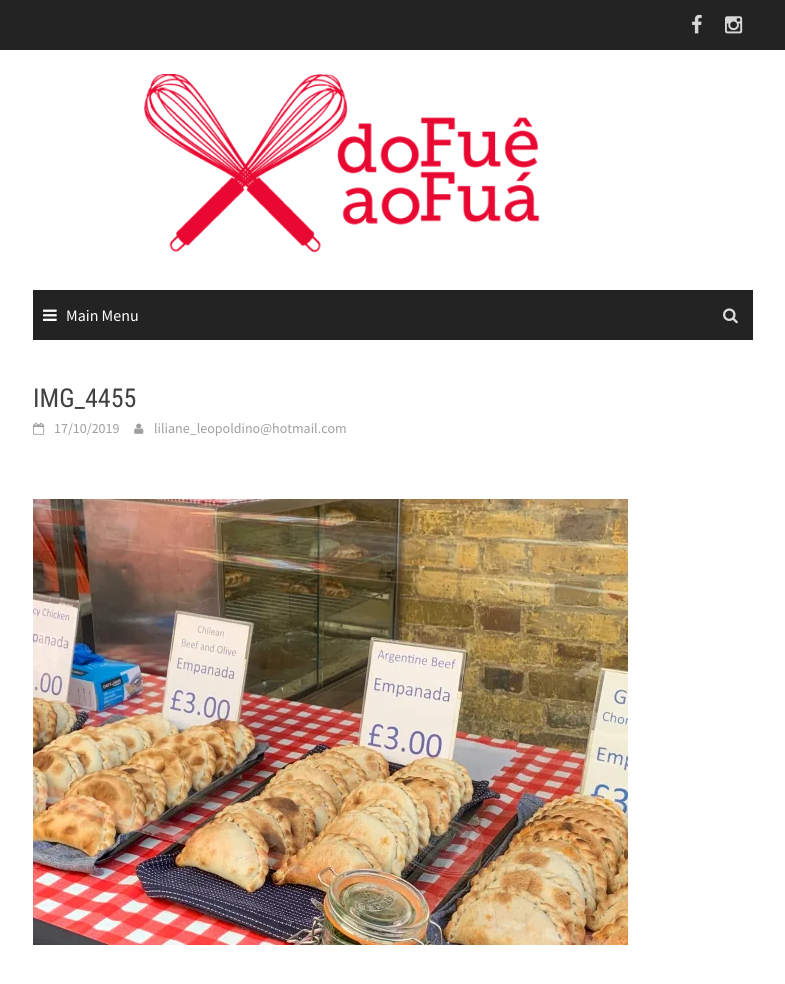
import math
import cairocffi as cairo

surface = cairo.ImageSurface(cairo.FORMAT_RGB24, 785, 984)
cr = cairo.Context(surface)
options = cairo.FontOptions()
options.set_hint_metrics(cairo.HINT_METRICS_OFF)
options.set_hint_style(cairo.HINT_STYLE_NONE)
cr.set_font_options(options)
cr.set_miter_limit(4)


def use_color(code):
    cr.set_source_rgb(*(v / 255 for v in bytes.fromhex(code[-6:])))


def picture(path, x, y, w, h):
    cr.save()
    cr.set_source_surface(cairo.ImageSurface.create_from_png(path), x, y)
    cr.rectangle(x, y, w, h)
    cr.fill()
    cr.restore()


use_color("#ffffff")
cr.paint()
use_color("#232323")
cr.rectangle(0, 0, 785, 50)
cr.fill()
picture("img1.png", 692, 14, 10, 20)
picture("img2.png", 725, 16, 18, 18)
picture("img3.png", 144, 74, 396, 179)
cr.rectangle(33, 290, 720, 50)
cr.fill()
picture("img4.png", 43, 309, 14, 12)
cr.select_font_face("Source Sans Pro")
cr.set_font_size(16)
use_color("#ffffff")
cr.move_to(66, 321)
cr.show_text("Main Menu")
picture("img5.png", 723, 308, 15, 16)
cr.select_font_face("Roboto Condensed")
cr.set_font_size(26)
use_color("#404040")
cr.move_to(33, 407)
cr.show_text("IMG_4455")
picture("img6.png", 33, 422, 12, 13)
cr.select_font_face("Source Sans Pro")
cr.set_font_size(14)
use_color("#9f9f9f")
cr.move_to(54, 433)
cr.show_text("17/10/2019")
picture("img7.png", 134, 423, 10, 11)
cr.move_to(154, 433)
cr.show_text("liliane_leopoldino@hotmail.com")
picture("img8.png", 33, 499, 595, 446)
surface.write_to_png("result.png")
